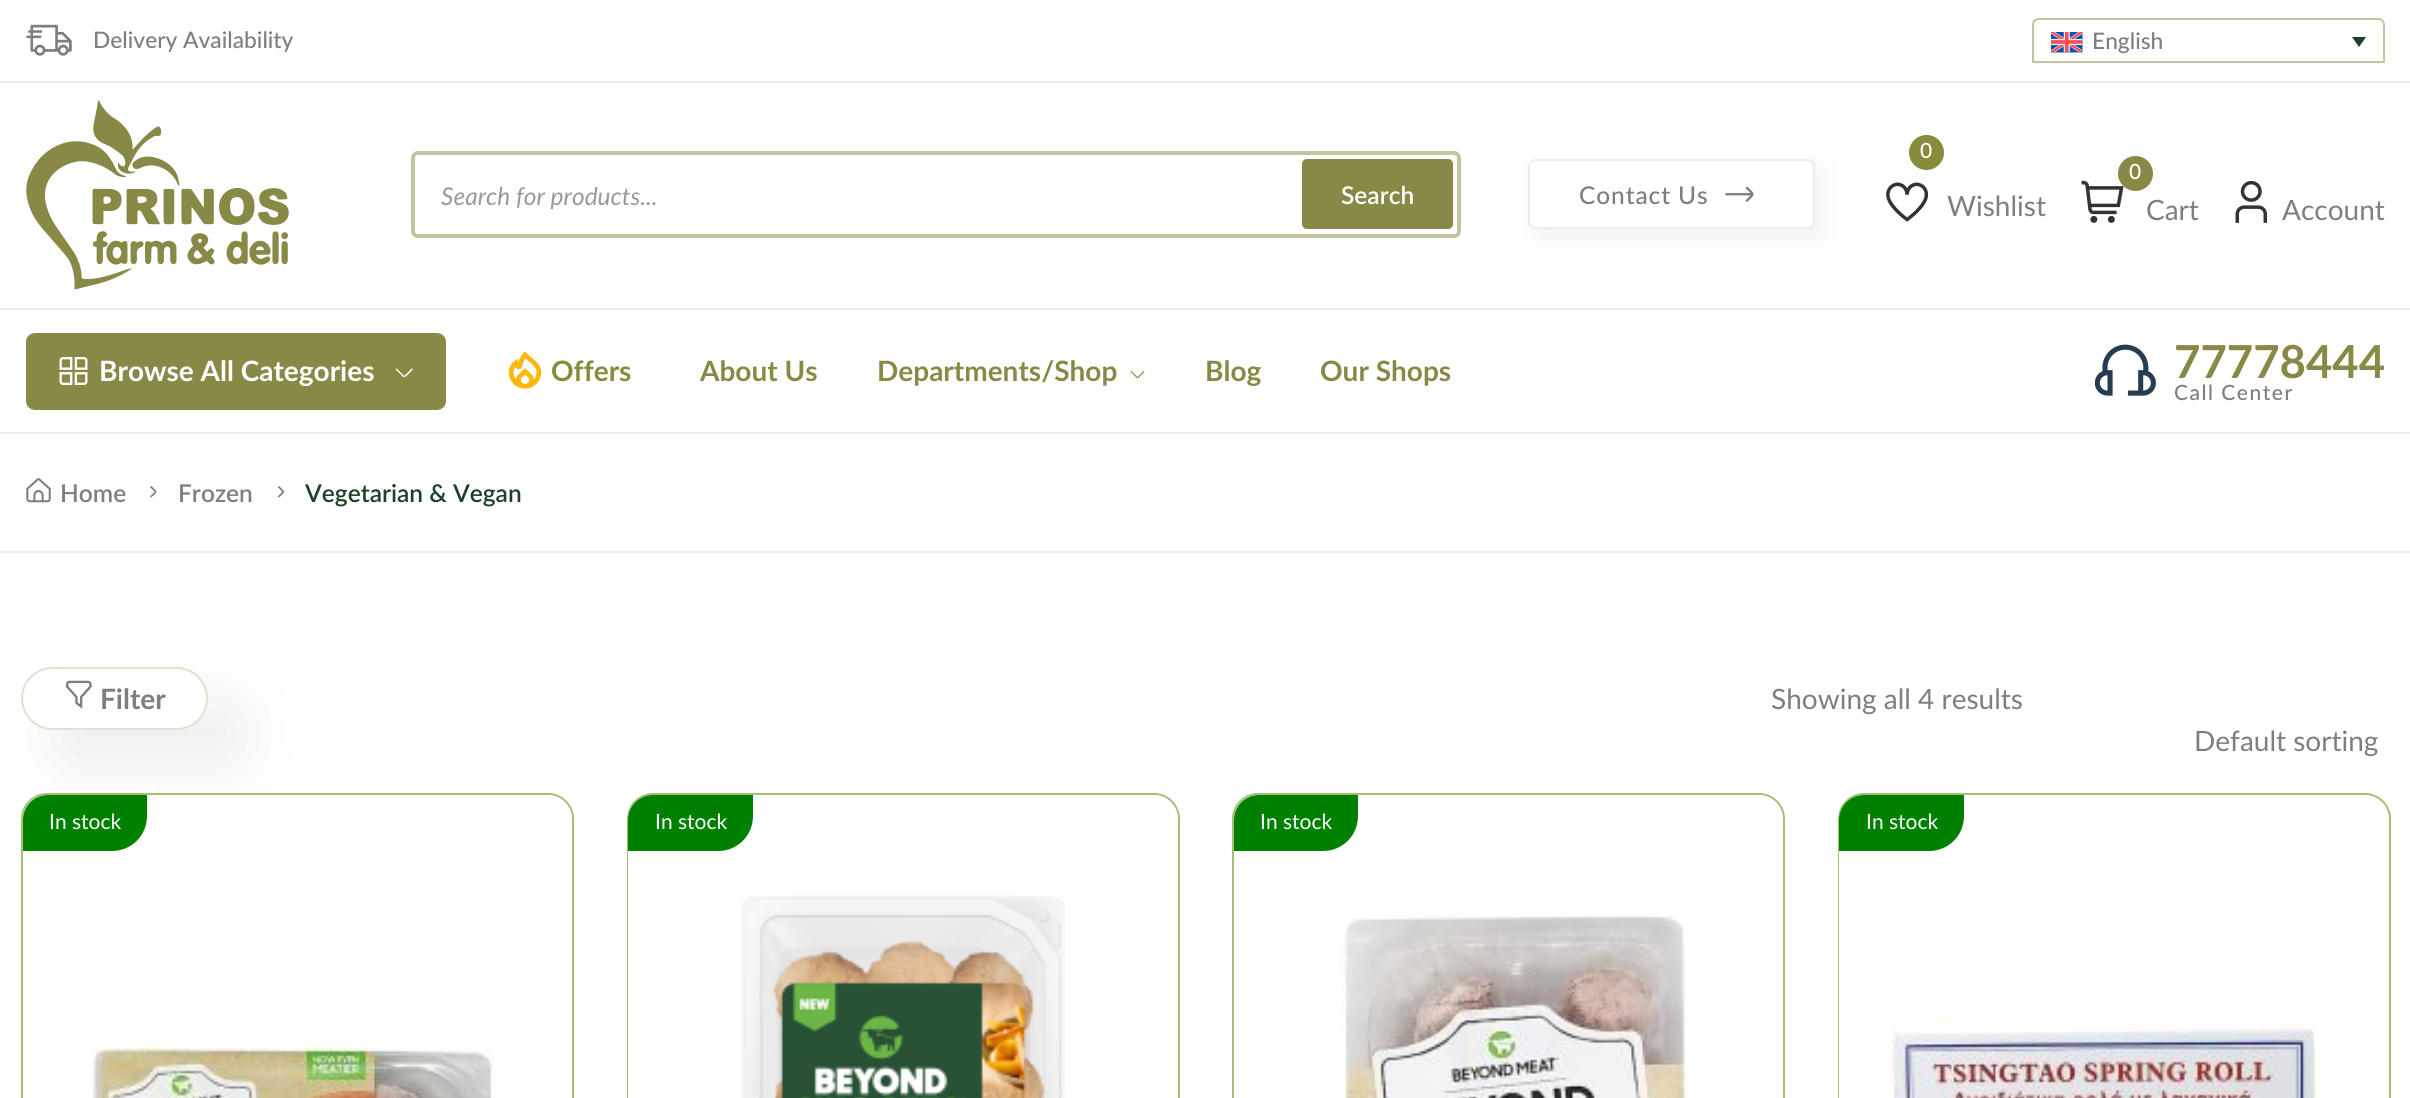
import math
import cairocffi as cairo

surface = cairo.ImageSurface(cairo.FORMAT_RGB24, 2410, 1098)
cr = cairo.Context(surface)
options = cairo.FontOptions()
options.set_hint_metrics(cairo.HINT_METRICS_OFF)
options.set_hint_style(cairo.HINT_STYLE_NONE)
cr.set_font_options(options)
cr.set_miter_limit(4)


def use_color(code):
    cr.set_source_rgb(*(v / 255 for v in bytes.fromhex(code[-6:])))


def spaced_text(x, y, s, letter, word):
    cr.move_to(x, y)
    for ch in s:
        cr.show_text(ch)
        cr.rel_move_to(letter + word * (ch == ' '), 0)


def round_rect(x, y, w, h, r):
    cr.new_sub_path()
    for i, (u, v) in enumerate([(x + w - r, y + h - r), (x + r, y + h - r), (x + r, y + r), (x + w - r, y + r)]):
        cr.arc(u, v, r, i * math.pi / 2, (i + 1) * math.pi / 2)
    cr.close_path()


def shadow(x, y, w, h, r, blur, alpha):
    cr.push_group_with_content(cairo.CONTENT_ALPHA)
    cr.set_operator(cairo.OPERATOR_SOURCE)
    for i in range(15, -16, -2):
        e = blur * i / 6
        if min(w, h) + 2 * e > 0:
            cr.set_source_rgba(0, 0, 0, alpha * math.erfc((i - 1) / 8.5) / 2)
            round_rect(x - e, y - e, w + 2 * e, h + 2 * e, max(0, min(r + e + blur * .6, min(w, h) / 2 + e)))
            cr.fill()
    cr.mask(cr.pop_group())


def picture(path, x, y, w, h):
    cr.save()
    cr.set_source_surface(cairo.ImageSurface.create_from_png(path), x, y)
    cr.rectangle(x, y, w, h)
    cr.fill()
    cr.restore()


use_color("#ffffff")
cr.paint()
use_color("#ececec")
cr.rectangle(0, 81, 2410, 2)
cr.fill()
picture("img1.png", 26, 24, 46, 32)
cr.select_font_face("Lato Medium")
cr.set_font_size(22.75)
use_color("#7e7e7e")
cr.move_to(93, 48)
cr.show_text("Delivery Availability")
cr.new_path()
cr.move_to(2039, 19)
cr.line_to(2378, 19)
cr.curve_to(2381.5, 19, 2384, 21.5, 2384, 25)
cr.line_to(2384, 62)
cr.line_to(2033, 62)
cr.line_to(2033, 25)
cr.curve_to(2033, 21.5, 2035.5, 19, 2039, 19)
cr.close_path()
use_color("#c4c4a3")
cr.stroke()
picture("img2.png", 2051, 32, 32, 21)
use_color("#7e7e7e")
cr.move_to(2092, 49)
cr.show_text("English")
use_color("#1e4029")
cr.new_path()
cr.move_to(2352, 37)
cr.line_to(2366, 37)
cr.line_to(2359, 47)
cr.close_path()
cr.fill()
picture("img3.png", 26, 100, 263, 190)
round_rect(413, 153, 1046, 83, 5)
use_color("#c4c4a3")
cr.set_line_width(4)
cr.stroke()
cr.select_font_face("Lato", cairo.FONT_SLANT_ITALIC)
cr.set_font_size(24.5)
use_color("#999999")
cr.move_to(441, 205)
cr.show_text("Search for products...")
use_color("#888946")
round_rect(1302, 159, 151, 70, 5)
cr.fill()
cr.select_font_face("Lato SemiBold")
use_color("#ffffff")
cr.move_to(1341, 204)
cr.show_text("Search")
use_color("#000000")
shadow(1537, 168, 287, 70, 7, 13, 0.05)
use_color("#ffffff")
round_rect(1529, 160, 285, 68, 6)
cr.fill_preserve()
use_color("#ececec")
cr.set_line_width(2)
cr.stroke()
cr.select_font_face("Lato Medium")
use_color("#7e7e7e")
spaced_text(1579, 204, "Contact Us", 0.9, 0)
picture("img4.png", 1725, 186, 29, 16)
use_color("#888b3b")
cr.arc(1926.5, 152.5, 17.5, 0, 2 * math.pi)
cr.fill()
cr.set_font_size(21)
use_color("#ffffff")
cr.move_to(1920, 158)
cr.show_text("0")
picture("img5.png", 1886, 182, 43, 40)
cr.select_font_face("Lato")
cr.set_font_size(28)
use_color("#7e7e7e")
cr.move_to(1947, 216)
cr.show_text("Wishlist")
picture("img6.png", 2081, 180, 43, 43)
use_color("#888946")
cr.arc(2135.5, 173.5, 17.5, 0, 2 * math.pi)
cr.fill()
cr.select_font_face("Lato Medium")
cr.set_font_size(21)
use_color("#ffffff")
cr.move_to(2129, 179)
cr.show_text("0")
cr.select_font_face("Lato")
cr.set_font_size(28)
use_color("#7e7e7e")
cr.move_to(2146, 220)
cr.show_text("Cart")
picture("img7.png", 2235, 180, 33, 43)
cr.move_to(2282, 220)
cr.show_text("Account")
use_color("#ececec")
cr.rectangle(0, 308, 2410, 2)
cr.fill()
cr.rectangle(0, 432, 2410, 2)
cr.fill()
use_color("#888946")
round_rect(26, 333, 420, 77, 9)
cr.fill()
picture("img8.png", 59, 357, 29, 28)
cr.select_font_face("Lato", cairo.FONT_SLANT_NORMAL, cairo.FONT_WEIGHT_BOLD)
use_color("#ffffff")
cr.move_to(99, 381)
cr.show_text("Browse All Categories")
picture("img9.png", 395, 368, 18, 10)
picture("img10.png", 508, 352, 34, 37)
use_color("#888b3b")
cr.move_to(551, 381)
cr.show_text("Offers")
use_color("#888946")
cr.move_to(700, 381)
cr.show_text("About Us")
cr.move_to(877, 381)
cr.show_text("Departments/Shop")
picture("img11.png", 1130, 371, 15, 7)
cr.move_to(1205, 381)
cr.show_text("Blog")
cr.move_to(1320, 381)
cr.show_text("Our Shops")
picture("img12.png", 2095, 344, 61, 52)
cr.set_font_size(45.5)
cr.move_to(2174, 378)
cr.show_text("77778444")
cr.select_font_face("Lato Medium")
cr.set_font_size(21)
use_color("#7e7e7e")
spaced_text(2174, 400, "Call Center", 1.5, 0)
use_color("#ececec")
cr.rectangle(0, 551, 2410, 2)
cr.fill()
picture("img13.png", 26, 478, 25, 25)
cr.select_font_face("Lato SemiBold")
cr.set_font_size(24.5)
use_color("#7e7e7e")
cr.move_to(60, 502)
cr.show_text("Home")
picture("img14.png", 150, 486, 7, 12)
cr.move_to(178, 502)
cr.show_text("Frozen")
picture("img15.png", 277, 486, 8, 12)
use_color("#1e4029")
cr.move_to(305, 502)
cr.show_text("Vegetarian & Vegan")
use_color("#000000")
shadow(56, 702, 187, 63, 31.5, 35, 0.07)
use_color("#ffffff")
round_rect(21, 667, 187, 63, 31.5)
cr.fill()
round_rect(22, 668, 185, 61, 30.5)
cr.set_source_rgba(0.533, 0.537, 0.275, 0.25)
cr.stroke()
picture("img16.png", 65, 680, 27, 29)
cr.select_font_face("Lato", cairo.FONT_SLANT_NORMAL, cairo.FONT_WEIGHT_BOLD)
cr.set_font_size(28)
use_color("#7e7e7e")
cr.move_to(100, 709)
cr.show_text("Filter")
cr.select_font_face("Lato")
cr.move_to(1771, 709)
cr.show_text("Showing all 4 results")
cr.move_to(2194, 751)
cr.show_text("Default sorting")
use_color("#ffffff")
round_rect(22, 794, 551, 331, 25)
cr.fill_preserve()
use_color("#a6bf74")
cr.stroke()
use_color("#ffffff")
cr.new_path()
cr.move_to(48, 795)
cr.line_to(547, 795)
cr.curve_to(561, 795, 572, 806, 572, 820)
cr.line_to(572, 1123)
cr.line_to(23, 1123)
cr.line_to(23, 820)
cr.curve_to(23, 806, 34, 795, 48, 795)
cr.close_path()
cr.fill()
use_color("#008000")
cr.new_path()
cr.move_to(48, 795)
cr.line_to(147, 795)
cr.line_to(147, 816)
cr.curve_to(147, 835.5, 131.5, 851, 112, 851)
cr.line_to(23, 851)
cr.line_to(23, 820)
cr.curve_to(23, 806, 34, 795, 48, 795)
cr.close_path()
cr.fill()
cr.set_font_size(21)
use_color("#ffffff")
cr.move_to(49, 829)
cr.show_text("In stock")
picture("img17.png", 91, 1046, 404, 52)
round_rect(628, 794, 551, 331, 25)
use_color("#a6bf74")
cr.stroke()
use_color("#ffffff")
cr.new_path()
cr.move_to(653, 795)
cr.line_to(1153, 795)
cr.curve_to(1167, 795, 1178, 806, 1178, 820)
cr.line_to(1178, 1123)
cr.line_to(628, 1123)
cr.line_to(628, 820)
cr.curve_to(628, 806, 639, 795, 653, 795)
cr.close_path()
cr.fill()
use_color("#008000")
cr.new_path()
cr.move_to(653, 795)
cr.line_to(753, 795)
cr.line_to(753, 816)
cr.curve_to(753, 835.5, 737.5, 851, 718, 851)
cr.line_to(628, 851)
cr.line_to(628, 820)
cr.curve_to(628, 806, 639, 795, 653, 795)
cr.close_path()
cr.fill()
use_color("#ffffff")
cr.move_to(655, 829)
cr.show_text("In stock")
picture("img18.png", 740, 895, 326, 203)
round_rect(1233, 794, 551, 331, 25)
use_color("#a6bf74")
cr.stroke()
use_color("#ffffff")
cr.new_path()
cr.move_to(1259, 795)
cr.line_to(1758, 795)
cr.curve_to(1772, 795, 1783, 806, 1783, 820)
cr.line_to(1783, 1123)
cr.line_to(1234, 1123)
cr.line_to(1234, 820)
cr.curve_to(1234, 806, 1245, 795, 1259, 795)
cr.close_path()
cr.fill()
use_color("#008000")
cr.new_path()
cr.move_to(1259, 795)
cr.line_to(1358, 795)
cr.line_to(1358, 816)
cr.curve_to(1358, 835.5, 1342.5, 851, 1323, 851)
cr.line_to(1234, 851)
cr.line_to(1234, 820)
cr.curve_to(1234, 806, 1245, 795, 1259, 795)
cr.close_path()
cr.fill()
use_color("#ffffff")
cr.move_to(1260, 829)
cr.show_text("In stock")
picture("img19.png", 1327, 913, 362, 185)
round_rect(1839, 794, 551, 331, 25)
use_color("#a6bf74")
cr.stroke()
use_color("#ffffff")
cr.new_path()
cr.move_to(1864, 795)
cr.line_to(2364, 795)
cr.curve_to(2378, 795, 2389, 806, 2389, 820)
cr.line_to(2389, 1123)
cr.line_to(1839, 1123)
cr.line_to(1839, 820)
cr.curve_to(1839, 806, 1850, 795, 1864, 795)
cr.close_path()
cr.fill()
use_color("#008000")
cr.new_path()
cr.move_to(1864, 795)
cr.line_to(1964, 795)
cr.line_to(1964, 816)
cr.curve_to(1964, 835.5, 1948.5, 851, 1929, 851)
cr.line_to(1839, 851)
cr.line_to(1839, 820)
cr.curve_to(1839, 806, 1850, 795, 1864, 795)
cr.close_path()
cr.fill()
use_color("#ffffff")
cr.move_to(1866, 829)
cr.show_text("In stock")
picture("img20.png", 1890, 1020, 426, 78)
surface.write_to_png("result.png")
